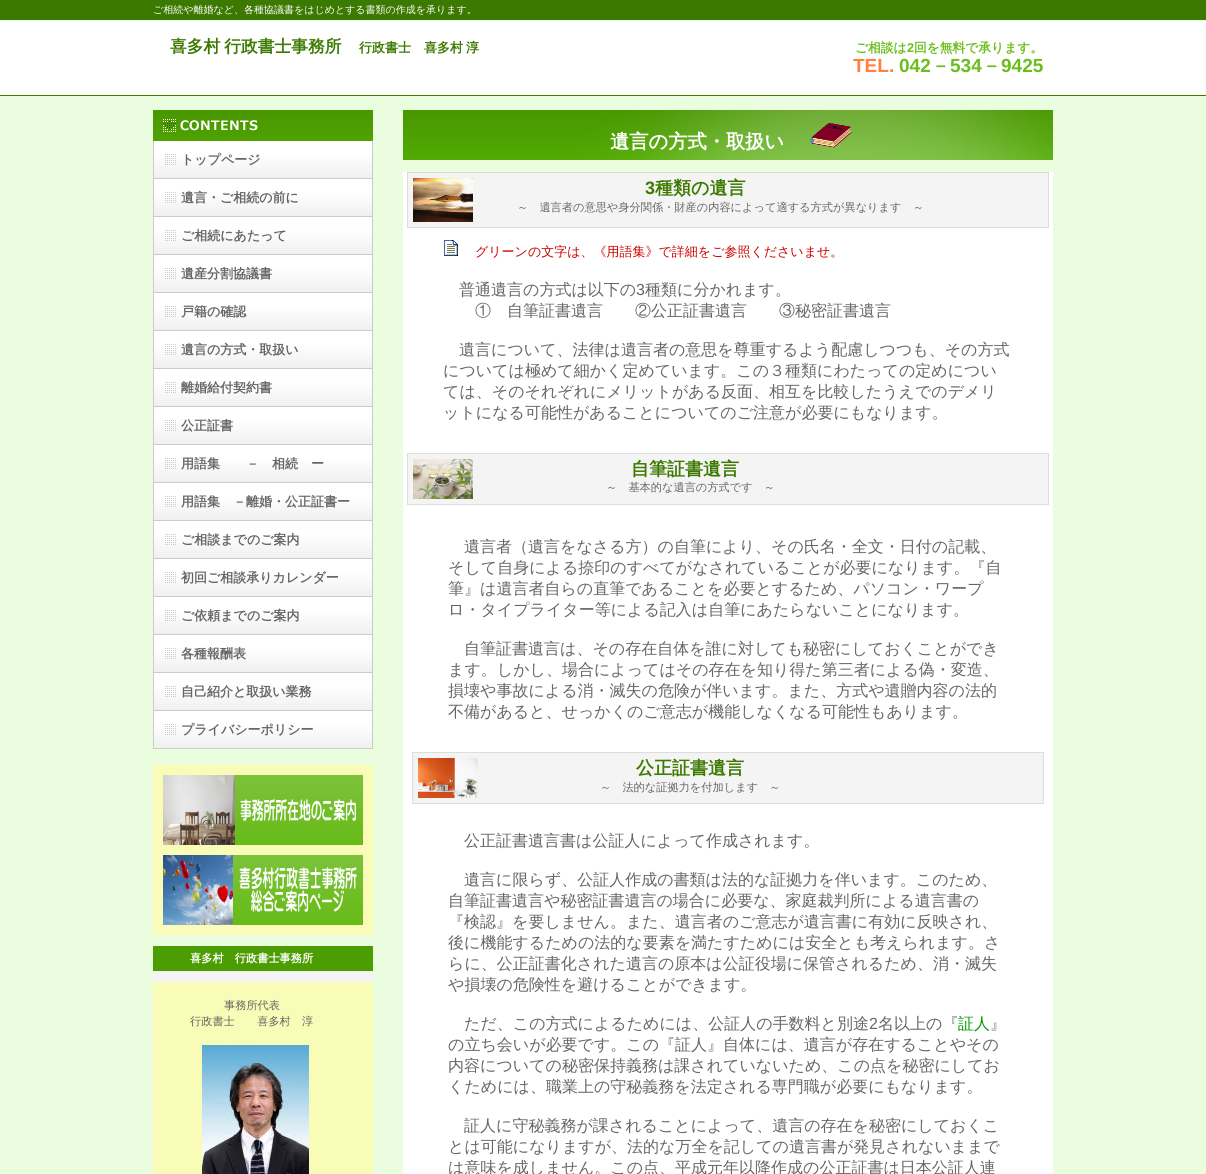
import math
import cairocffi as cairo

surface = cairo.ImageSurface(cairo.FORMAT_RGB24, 1206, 1174)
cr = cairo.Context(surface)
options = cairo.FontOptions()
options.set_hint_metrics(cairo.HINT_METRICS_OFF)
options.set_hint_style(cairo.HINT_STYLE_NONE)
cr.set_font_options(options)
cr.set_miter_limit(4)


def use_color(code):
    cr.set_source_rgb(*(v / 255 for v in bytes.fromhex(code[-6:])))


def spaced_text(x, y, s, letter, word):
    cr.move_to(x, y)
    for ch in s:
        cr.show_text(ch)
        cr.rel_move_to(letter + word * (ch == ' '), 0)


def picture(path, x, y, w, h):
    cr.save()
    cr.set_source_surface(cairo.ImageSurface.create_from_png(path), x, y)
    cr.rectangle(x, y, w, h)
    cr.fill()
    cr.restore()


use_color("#ebfddf")
cr.paint()
picture("img1.png", 0, 0, 1206, 96)
cr.select_font_face("WenQuanYi Zen Hei Medium")
cr.set_font_size(10)
use_color("#ffffff")
cr.move_to(153, 13)
cr.show_text("ご相続や離婚など、各種協議書をはじめとする書類の作成を承ります。")
cr.select_font_face("WenQuanYi Zen Hei", cairo.FONT_SLANT_NORMAL, cairo.FONT_WEIGHT_BOLD)
cr.set_font_size(16.75)
use_color("#3c7a01")
spaced_text(170, 52, "喜多村 行政書士事務所", 0, -1)
cr.set_font_size(13)
spaced_text(359, 52, "行政書士　喜多村 淳", 0, -1)
cr.set_font_size(12.75)
use_color("#6cbd1e")
cr.move_to(855, 52)
cr.show_text("ご相談は")
cr.select_font_face("Liberation Sans", cairo.FONT_SLANT_NORMAL, cairo.FONT_WEIGHT_BOLD)
cr.move_to(907, 52)
cr.show_text("2")
cr.select_font_face("WenQuanYi Zen Hei", cairo.FONT_SLANT_NORMAL, cairo.FONT_WEIGHT_BOLD)
cr.move_to(914, 52)
cr.show_text("回を無料で承ります。")
cr.select_font_face("Liberation Sans", cairo.FONT_SLANT_NORMAL, cairo.FONT_WEIGHT_BOLD)
cr.set_font_size(19)
use_color("#ff8040")
cr.move_to(853, 72)
cr.show_text("TEL.")
use_color("#6cbd1e")
cr.move_to(899, 72)
cr.show_text("042")
cr.select_font_face("WenQuanYi Zen Hei", cairo.FONT_SLANT_NORMAL, cairo.FONT_WEIGHT_BOLD)
cr.move_to(931, 72)
cr.show_text("－")
cr.select_font_face("Liberation Sans", cairo.FONT_SLANT_NORMAL, cairo.FONT_WEIGHT_BOLD)
cr.move_to(950, 72)
cr.show_text("534")
cr.select_font_face("WenQuanYi Zen Hei", cairo.FONT_SLANT_NORMAL, cairo.FONT_WEIGHT_BOLD)
cr.move_to(982, 72)
cr.show_text("－")
cr.select_font_face("Liberation Sans", cairo.FONT_SLANT_NORMAL, cairo.FONT_WEIGHT_BOLD)
cr.move_to(1001, 72)
cr.show_text("9425")
picture("img2.png", 153, 110, 220, 31)
use_color("#cccccc")
cr.rectangle(372, 141, 1, 608)
cr.fill()
cr.rectangle(153, 178, 220, 1)
cr.fill()
cr.rectangle(153, 141, 1, 38)
cr.fill()
picture("img3.png", 154, 141, 218, 37)
cr.select_font_face("WenQuanYi Zen Hei", cairo.FONT_SLANT_NORMAL, cairo.FONT_WEIGHT_BOLD)
cr.set_font_size(13)
use_color("#666666")
cr.move_to(181, 164)
cr.show_text("トップページ")
use_color("#cccccc")
cr.rectangle(153, 216, 220, 1)
cr.fill()
cr.rectangle(153, 179, 1, 38)
cr.fill()
picture("img3.png", 154, 179, 218, 37)
use_color("#666666")
cr.move_to(181, 202)
cr.show_text("遺言・ご相続の前に")
use_color("#cccccc")
cr.rectangle(153, 254, 220, 1)
cr.fill()
cr.rectangle(153, 217, 1, 38)
cr.fill()
picture("img3.png", 154, 217, 218, 37)
use_color("#666666")
cr.move_to(181, 240)
cr.show_text("ご相続にあたって")
use_color("#cccccc")
cr.rectangle(153, 292, 220, 1)
cr.fill()
cr.rectangle(153, 255, 1, 38)
cr.fill()
picture("img3.png", 154, 255, 218, 37)
use_color("#666666")
cr.move_to(181, 278)
cr.show_text("遺産分割協議書")
use_color("#cccccc")
cr.rectangle(153, 330, 220, 1)
cr.fill()
cr.rectangle(153, 293, 1, 38)
cr.fill()
picture("img3.png", 154, 293, 218, 37)
use_color("#666666")
cr.move_to(181, 316)
cr.show_text("戸籍の確認")
use_color("#cccccc")
cr.rectangle(153, 368, 220, 1)
cr.fill()
cr.rectangle(153, 331, 1, 38)
cr.fill()
picture("img3.png", 154, 331, 218, 37)
use_color("#666666")
cr.move_to(181, 354)
cr.show_text("遺言の方式・取扱い")
use_color("#cccccc")
cr.rectangle(153, 406, 220, 1)
cr.fill()
cr.rectangle(153, 369, 1, 38)
cr.fill()
picture("img3.png", 154, 369, 218, 37)
use_color("#666666")
cr.move_to(181, 392)
cr.show_text("離婚給付契約書")
use_color("#cccccc")
cr.rectangle(153, 444, 220, 1)
cr.fill()
cr.rectangle(153, 407, 1, 38)
cr.fill()
picture("img3.png", 154, 407, 218, 37)
use_color("#666666")
cr.move_to(181, 430)
cr.show_text("公正証書")
use_color("#cccccc")
cr.rectangle(153, 482, 220, 1)
cr.fill()
cr.rectangle(153, 445, 1, 38)
cr.fill()
picture("img3.png", 154, 445, 218, 37)
use_color("#666666")
cr.move_to(181, 468)
cr.show_text("用語集　　－　相続　ー")
use_color("#cccccc")
cr.rectangle(153, 520, 220, 1)
cr.fill()
cr.rectangle(153, 483, 1, 38)
cr.fill()
picture("img3.png", 154, 483, 218, 37)
use_color("#666666")
cr.move_to(181, 506)
cr.show_text("用語集　－離婚・公正証書ー")
use_color("#cccccc")
cr.rectangle(153, 558, 220, 1)
cr.fill()
cr.rectangle(153, 521, 1, 38)
cr.fill()
picture("img3.png", 154, 521, 218, 37)
use_color("#666666")
cr.move_to(181, 544)
cr.show_text("ご相談までのご案内")
use_color("#cccccc")
cr.rectangle(153, 596, 220, 1)
cr.fill()
cr.rectangle(153, 559, 1, 38)
cr.fill()
picture("img3.png", 154, 559, 218, 37)
use_color("#666666")
cr.move_to(181, 582)
cr.show_text("初回ご相談承りカレンダー")
use_color("#cccccc")
cr.rectangle(153, 634, 220, 1)
cr.fill()
cr.rectangle(153, 597, 1, 38)
cr.fill()
picture("img3.png", 154, 597, 218, 37)
use_color("#666666")
cr.move_to(181, 620)
cr.show_text("ご依頼までのご案内")
use_color("#cccccc")
cr.rectangle(153, 672, 220, 1)
cr.fill()
cr.rectangle(153, 635, 1, 38)
cr.fill()
picture("img3.png", 154, 635, 218, 37)
use_color("#666666")
cr.move_to(181, 658)
cr.show_text("各種報酬表")
use_color("#cccccc")
cr.rectangle(153, 710, 220, 1)
cr.fill()
cr.rectangle(153, 673, 1, 38)
cr.fill()
picture("img3.png", 154, 673, 218, 37)
use_color("#666666")
cr.move_to(181, 696)
cr.show_text("自己紹介と取扱い業務")
use_color("#cccccc")
cr.rectangle(153, 748, 220, 1)
cr.fill()
cr.rectangle(153, 711, 1, 38)
cr.fill()
picture("img3.png", 154, 711, 218, 37)
use_color("#666666")
cr.move_to(181, 734)
cr.show_text("プライバシーポリシー")
picture("img4.png", 403, 110, 650, 50)
cr.set_font_size(19.25)
use_color("#ffffff")
cr.move_to(610, 148)
cr.show_text("遺言の方式・取扱い")
picture("img5.png", 810, 123, 42, 25)
cr.rectangle(403, 172, 650, 1002)
cr.fill()
use_color("#f4f4f4")
cr.rectangle(407.5, 172.5, 641, 55)
cr.fill_preserve()
use_color("#dddddd")
cr.set_line_width(1)
cr.stroke()
picture("img6.png", 413, 178, 60, 44)
cr.select_font_face("Liberation Sans", cairo.FONT_SLANT_NORMAL, cairo.FONT_WEIGHT_BOLD)
cr.set_font_size(18)
use_color("#3c7a01")
cr.move_to(645, 194)
cr.show_text("3")
cr.select_font_face("WenQuanYi Zen Hei", cairo.FONT_SLANT_NORMAL, cairo.FONT_WEIGHT_BOLD)
cr.move_to(655, 194)
cr.show_text("種類の遺言")
cr.select_font_face("WenQuanYi Zen Hei Medium")
cr.set_font_size(11.2)
use_color("#666666")
cr.move_to(517, 211)
cr.show_text("～　遺言者の意思や身分関係・財産の内容によって適する方式が異なります　～")
picture("img7.png", 444, 240, 14, 16)
cr.set_font_size(13)
use_color("#cc0000")
cr.move_to(475, 256)
cr.show_text("グリーンの文字は、《用語集》で詳細をご参照くださいませ。")
cr.set_font_size(16)
use_color("#666666")
cr.move_to(459, 295)
cr.show_text("普通遺言の方式は以下の")
cr.select_font_face("Liberation Sans")
cr.move_to(636, 295)
cr.show_text("3")
cr.select_font_face("WenQuanYi Zen Hei Medium")
cr.move_to(645, 295)
cr.show_text("種類に分かれます。")
cr.move_to(475, 316)
cr.show_text("①　自筆証書遺言　　②公正証書遺言　　③秘密証書遺言")
cr.move_to(459, 355)
cr.show_text("遺言について、法律は遺言者の意思を尊重するよう配慮しつつも、その方式")
cr.move_to(443, 376)
cr.show_text("については極めて細かく定めています。この３種類にわたっての定めについ")
cr.move_to(443, 397)
cr.show_text("ては、そのそれぞれにメリットがある反面、相互を比較したうえでのデメリ")
cr.move_to(443, 418)
cr.show_text("ットになる可能性があることについてのご注意が必要にもなります。")
use_color("#f4f4f4")
cr.rectangle(407.5, 453.5, 641, 51)
cr.fill_preserve()
use_color("#dddddd")
cr.stroke()
picture("img8.png", 413, 459, 60, 40)
cr.select_font_face("WenQuanYi Zen Hei", cairo.FONT_SLANT_NORMAL, cairo.FONT_WEIGHT_BOLD)
cr.set_font_size(18)
use_color("#3c7a01")
cr.move_to(631, 475)
cr.show_text("自筆証書遺言")
cr.select_font_face("WenQuanYi Zen Hei Medium")
cr.set_font_size(11.2)
use_color("#666666")
cr.move_to(606, 491)
cr.show_text("～　基本的な遺言の方式です　～")
cr.set_font_size(16)
cr.move_to(464, 552)
cr.show_text("遺言者（遺言をなさる方）の自筆により、その氏名・全文・日付の記載、")
cr.move_to(448, 573)
cr.show_text("そして自身による捺印のすべてがなされていることが必要になります。『自")
cr.move_to(448, 594)
cr.show_text("筆』は遺言者自らの直筆であることを必要とするため、パソコン・ワープ")
cr.move_to(448, 615)
cr.show_text("ロ・タイプライター等による記入は自筆にあたらないことになります。")
cr.move_to(464, 654)
cr.show_text("自筆証書遺言は、その存在自体を誰に対しても秘密にしておくことができ")
cr.move_to(448, 675)
cr.show_text("ます。しかし、場合によってはその存在を知り得た第三者による偽・変造、")
cr.move_to(448, 696)
cr.show_text("損壊や事故による消・滅失の危険が伴います。また、方式や遺贈内容の法的")
cr.move_to(448, 717)
cr.show_text("不備があると、せっかくのご意志が機能しなくなる可能性もあります。")
use_color("#f4f4f4")
cr.rectangle(412.5, 752.5, 631, 51)
cr.fill_preserve()
use_color("#dddddd")
cr.stroke()
picture("img9.png", 418, 758, 60, 40)
cr.select_font_face("WenQuanYi Zen Hei", cairo.FONT_SLANT_NORMAL, cairo.FONT_WEIGHT_BOLD)
cr.set_font_size(18)
use_color("#3c7a01")
cr.move_to(636, 774)
cr.show_text("公正証書遺言")
cr.select_font_face("WenQuanYi Zen Hei Medium")
cr.set_font_size(11.2)
use_color("#666666")
cr.move_to(600, 791)
cr.show_text("～　法的な証拠力を付加します　～")
cr.set_font_size(16)
cr.move_to(464, 846)
cr.show_text("公正証書遺言書は公証人によって作成されます。")
cr.move_to(464, 885)
cr.show_text("遺言に限らず、公証人作成の書類は法的な証拠力を伴います。このため、")
cr.move_to(448, 906)
cr.show_text("自筆証書遺言や秘密証書遺言の場合に必要な、家庭裁判所による遺言書の")
cr.move_to(448, 927)
cr.show_text("『検認』を要しません。また、遺言者のご意志が遺言書に有効に反映され、")
cr.move_to(448, 948)
cr.show_text("後に機能するための法的な要素を満たすためには安全とも考えられます。さ")
cr.move_to(448, 969)
cr.show_text("らに、公正証書化された遺言の原本は公証役場に保管されるため、消・滅失")
cr.move_to(448, 990)
cr.show_text("や損壊の危険性を避けることができます。")
cr.move_to(464, 1029)
cr.show_text("ただ、この方式によるためには、公証人の手数料と別途")
cr.select_font_face("Liberation Sans")
cr.move_to(869, 1029)
cr.show_text("2")
cr.select_font_face("WenQuanYi Zen Hei Medium")
cr.move_to(878, 1029)
cr.show_text("名以上の『")
use_color("#009900")
cr.move_to(958, 1029)
cr.show_text("証人")
use_color("#666666")
cr.move_to(990, 1029)
cr.show_text("』")
cr.move_to(448, 1050)
cr.show_text("の立ち会いが必要です。この『証人』自体には、遺言が存在することやその")
cr.move_to(448, 1071)
cr.show_text("内容についての秘密保持義務は課されていないため、この点を秘密にしてお")
cr.move_to(448, 1092)
cr.show_text("くためには、職業上の守秘義務を法定される専門職が必要にもなります。")
cr.move_to(464, 1131)
cr.show_text("証人に守秘義務が課されることによって、遺言の存在を秘密にしておくこ")
cr.move_to(448, 1152)
cr.show_text("とは可能になりますが、法的な万全を記しての遺言書が発見されないままで")
cr.move_to(448, 1173)
cr.show_text("は意味を成しません。この点、平成元年以降作成の公正証書は日本公証人連")
use_color("#f9fcb6")
cr.rectangle(153, 765, 220, 170)
cr.fill()
picture("img10.png", 163, 775, 200, 70)
picture("img11.png", 163, 855, 200, 70)
use_color("#f3f3f3")
cr.rectangle(153, 971, 220, 11)
cr.fill()
use_color("#4c9d01")
cr.rectangle(153, 946, 220, 25)
cr.fill()
cr.select_font_face("WenQuanYi Zen Hei", cairo.FONT_SLANT_NORMAL, cairo.FONT_WEIGHT_BOLD)
cr.set_font_size(11.2)
use_color("#ffffff")
cr.move_to(190, 962)
cr.show_text("喜多村　行政書士事務所")
use_color("#f9fcb6")
cr.rectangle(153, 982, 220, 192)
cr.fill()
cr.select_font_face("WenQuanYi Zen Hei Medium")
use_color("#666666")
cr.move_to(224, 1009)
cr.show_text("事務所代表")
cr.move_to(190, 1025)
cr.show_text("行政書士　　喜多村　淳")
picture("img12.png", 202, 1045, 107, 129)
surface.write_to_png("result.png")
